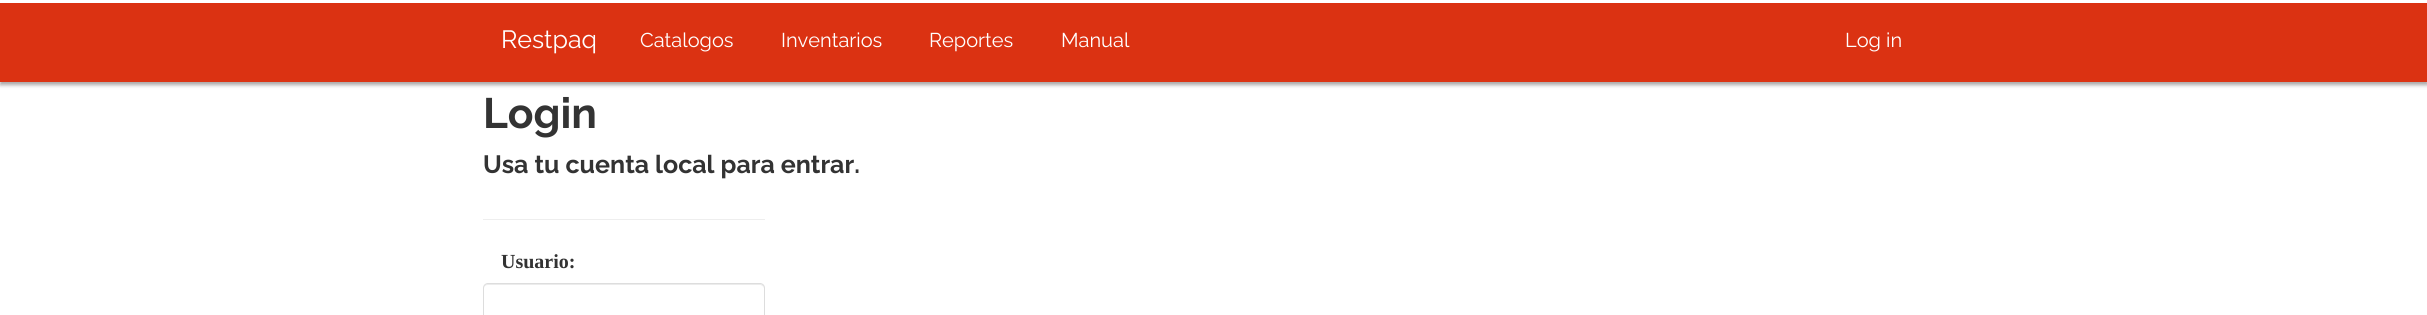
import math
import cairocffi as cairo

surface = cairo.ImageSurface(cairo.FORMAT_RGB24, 2427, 315)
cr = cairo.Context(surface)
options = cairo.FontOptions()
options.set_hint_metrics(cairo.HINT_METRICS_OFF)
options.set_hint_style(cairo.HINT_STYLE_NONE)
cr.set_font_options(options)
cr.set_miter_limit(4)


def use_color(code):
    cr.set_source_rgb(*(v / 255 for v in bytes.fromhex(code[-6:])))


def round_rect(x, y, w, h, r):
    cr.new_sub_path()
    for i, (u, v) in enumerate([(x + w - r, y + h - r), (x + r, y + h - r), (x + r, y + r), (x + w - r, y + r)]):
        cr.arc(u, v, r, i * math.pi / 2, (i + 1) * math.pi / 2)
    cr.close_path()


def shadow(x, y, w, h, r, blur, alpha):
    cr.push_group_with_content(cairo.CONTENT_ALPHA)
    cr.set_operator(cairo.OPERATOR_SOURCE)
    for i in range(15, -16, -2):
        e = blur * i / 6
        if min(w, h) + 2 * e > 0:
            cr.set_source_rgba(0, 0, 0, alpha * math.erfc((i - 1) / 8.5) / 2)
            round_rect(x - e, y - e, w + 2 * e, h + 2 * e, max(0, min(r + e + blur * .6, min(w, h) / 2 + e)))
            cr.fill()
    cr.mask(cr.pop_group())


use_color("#ffffff")
cr.paint()
use_color("#221919")
shadow(0, 3, 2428, 82, 0, 2, 0.4)
use_color("#db3212")
cr.rectangle(0, 3, 2427, 79)
cr.fill()
use_color("#ffffff")
cr.rectangle(0, 0, 2427, 3)
cr.fill()
cr.select_font_face("Raleway")
cr.set_font_size(25)
cr.move_to(501, 48)
cr.show_text("Restpaq")
cr.set_font_size(20)
cr.move_to(640, 47)
cr.show_text("Catalogos")
cr.move_to(781, 47)
cr.show_text("Inventarios")
cr.move_to(929, 47)
cr.show_text("Reportes")
cr.move_to(1061, 47)
cr.show_text("Manual")
cr.move_to(1845, 47)
cr.show_text("Log in")
cr.select_font_face("Raleway", cairo.FONT_SLANT_NORMAL, cairo.FONT_WEIGHT_BOLD)
cr.set_font_size(42.5)
use_color("#333333")
cr.move_to(483, 128)
cr.show_text("Login")
cr.set_font_size(25)
cr.move_to(483, 173)
cr.show_text("Usa tu cuenta local para entrar.")
use_color("#eeeeee")
cr.rectangle(483, 219, 282, 1)
cr.fill()
cr.select_font_face("Liberation Serif", cairo.FONT_SLANT_NORMAL, cairo.FONT_WEIGHT_BOLD)
cr.set_font_size(20)
use_color("#333333")
cr.move_to(501, 268)
cr.show_text("Usuario:")
use_color("#ececec")
cr.new_path()
cr.move_to(488, 285)
cr.line_to(760, 285)
cr.curve_to(762, 285, 764, 287, 764, 289)
cr.curve_to(764, 286, 763, 284, 760, 284)
cr.line_to(488, 284)
cr.curve_to(485, 284, 484, 286, 484, 289)
cr.curve_to(484, 287, 485, 285, 488, 285)
cr.close_path()
cr.fill()
round_rect(483.5, 283.5, 281, 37, 4.5)
use_color("#dddddd")
cr.set_line_width(1)
cr.stroke()
surface.write_to_png("result.png")
